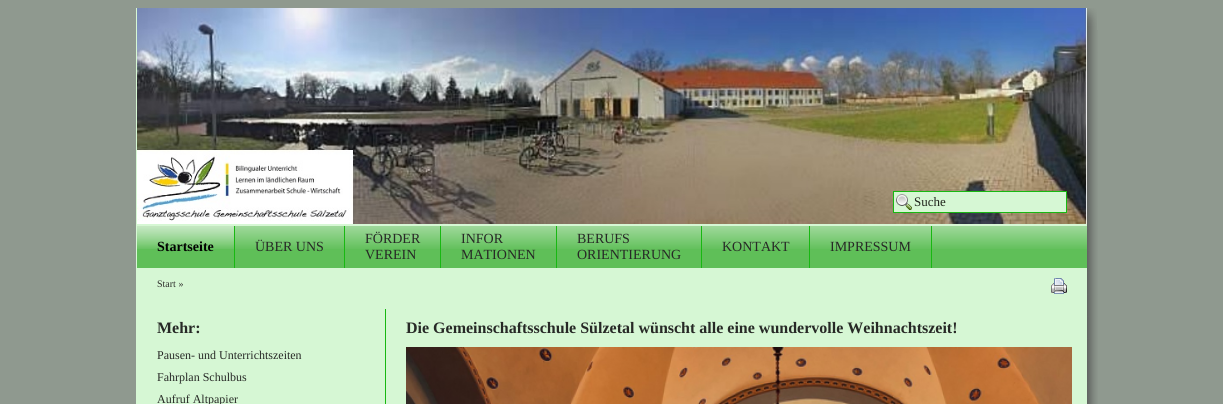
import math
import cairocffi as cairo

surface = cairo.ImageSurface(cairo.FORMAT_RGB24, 1223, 404)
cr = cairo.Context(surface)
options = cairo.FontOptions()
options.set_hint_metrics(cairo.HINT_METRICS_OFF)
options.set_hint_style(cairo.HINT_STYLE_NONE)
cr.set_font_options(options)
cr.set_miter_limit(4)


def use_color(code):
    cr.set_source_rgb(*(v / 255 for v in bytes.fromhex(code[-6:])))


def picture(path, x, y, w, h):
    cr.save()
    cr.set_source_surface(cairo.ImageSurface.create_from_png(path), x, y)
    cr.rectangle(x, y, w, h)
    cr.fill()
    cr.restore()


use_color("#8f998f")
cr.paint()
use_color("#d6f7d4")
cr.rectangle(136, 8, 951, 396)
cr.fill()
picture("img1.png", 137, 8, 950, 216)
picture("img2.png", 1087, 30, 11, 374)
picture("img3.png", 1087, 8, 10, 22)
cr.rectangle(894, 192, 172, 20)
cr.fill()
picture("img4.png", 896, 194, 16, 16)
cr.rectangle(893.5, 191.5, 173, 21)
use_color("#18b812")
cr.set_line_width(1)
cr.stroke()
cr.select_font_face("Liberation Serif")
cr.set_font_size(13)
use_color("#20241c")
cr.move_to(914, 206)
cr.show_text("Suche")
use_color("#5fbf58")
cr.rectangle(137, 226, 950, 42)
cr.fill()
picture("img5.png", 137, 226, 950, 23)
picture("img6.png", 137, 226, 97, 23)
use_color("#18b812")
cr.rectangle(234, 226, 1, 42)
cr.fill()
cr.select_font_face("Liberation Serif", cairo.FONT_SLANT_NORMAL, cairo.FONT_WEIGHT_BOLD)
cr.set_font_size(14)
use_color("#030303")
cr.move_to(157, 251)
cr.show_text("Startseite")
use_color("#18b812")
cr.rectangle(344, 226, 1, 42)
cr.fill()
cr.select_font_face("Liberation Serif")
use_color("#272926")
cr.move_to(255, 251)
cr.show_text("ÜBER UNS")
use_color("#18b812")
cr.rectangle(440, 226, 1, 42)
cr.fill()
use_color("#272926")
cr.move_to(365, 243)
cr.show_text("FÖRDER")
cr.move_to(365, 259)
cr.show_text("VEREIN")
use_color("#18b812")
cr.rectangle(556, 226, 1, 42)
cr.fill()
use_color("#272926")
cr.move_to(461, 243)
cr.show_text("INFOR")
cr.move_to(461, 259)
cr.show_text("MATIONEN")
use_color("#18b812")
cr.rectangle(701, 226, 1, 42)
cr.fill()
use_color("#272926")
cr.move_to(577, 243)
cr.show_text("BERUFS")
cr.move_to(577, 259)
cr.show_text("ORIENTIERUNG")
use_color("#18b812")
cr.rectangle(809, 226, 1, 42)
cr.fill()
use_color("#272926")
cr.move_to(722, 251)
cr.show_text("KONTAKT")
use_color("#18b812")
cr.rectangle(931, 226, 1, 42)
cr.fill()
use_color("#272926")
cr.move_to(830, 251)
cr.show_text("IMPRESSUM")
cr.set_font_size(10)
use_color("#2f302d")
cr.move_to(157, 287)
cr.show_text("Start »")
picture("img7.png", 1051, 278, 16, 16)
cr.select_font_face("Liberation Serif", cairo.FONT_SLANT_NORMAL, cairo.FONT_WEIGHT_BOLD)
cr.set_font_size(16)
use_color("#272926")
cr.move_to(157, 333)
cr.show_text("Mehr:")
cr.select_font_face("Liberation Serif")
cr.set_font_size(12)
cr.move_to(157, 359)
cr.show_text("Pausen- und Unterrichtszeiten")
cr.move_to(157, 381)
cr.show_text("Fahrplan Schulbus")
cr.move_to(157, 403)
cr.show_text("Aufruf Altpapier")
use_color("#18b812")
cr.rectangle(385, 309, 1, 95)
cr.fill()
cr.select_font_face("Liberation Serif", cairo.FONT_SLANT_NORMAL, cairo.FONT_WEIGHT_BOLD)
cr.set_font_size(16)
use_color("#272926")
cr.move_to(406, 333)
cr.show_text("Die Gemeinschaftsschule Sülzetal wünscht alle eine wundervolle Weihnachtszeit!")
picture("img8.png", 406, 347, 666, 57)
surface.write_to_png("result.png")
